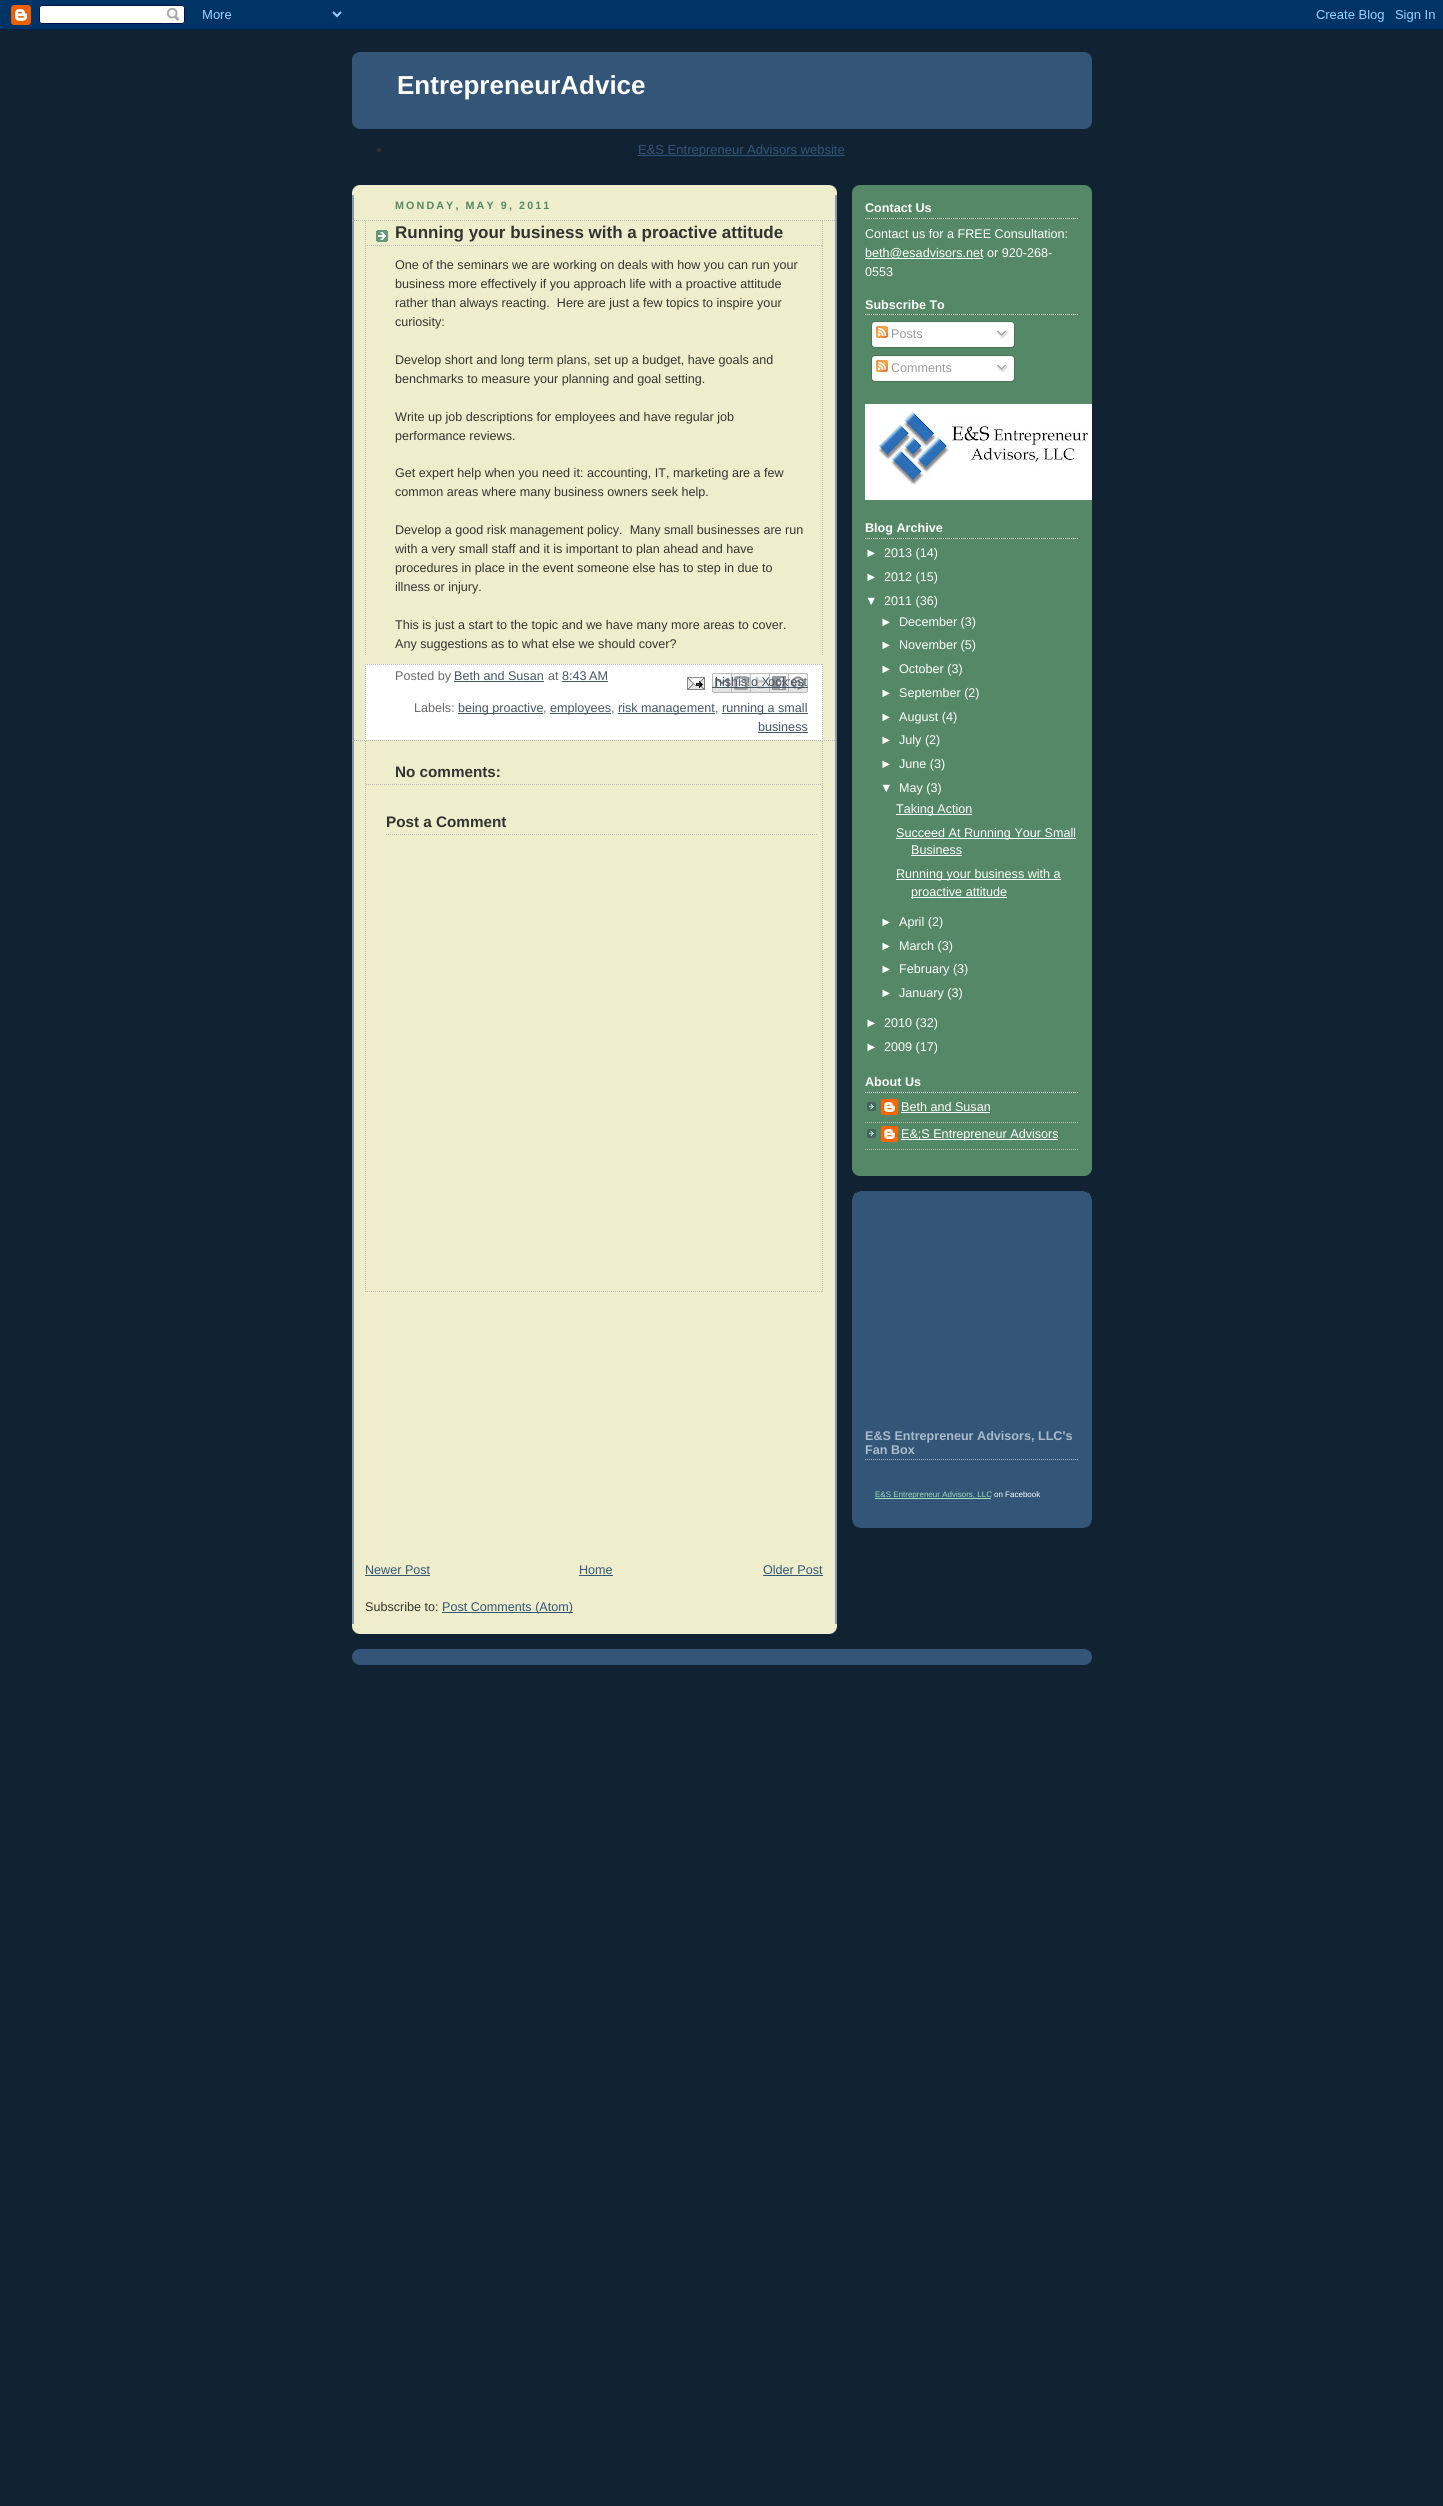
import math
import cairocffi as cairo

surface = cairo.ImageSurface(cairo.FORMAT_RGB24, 1443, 2506)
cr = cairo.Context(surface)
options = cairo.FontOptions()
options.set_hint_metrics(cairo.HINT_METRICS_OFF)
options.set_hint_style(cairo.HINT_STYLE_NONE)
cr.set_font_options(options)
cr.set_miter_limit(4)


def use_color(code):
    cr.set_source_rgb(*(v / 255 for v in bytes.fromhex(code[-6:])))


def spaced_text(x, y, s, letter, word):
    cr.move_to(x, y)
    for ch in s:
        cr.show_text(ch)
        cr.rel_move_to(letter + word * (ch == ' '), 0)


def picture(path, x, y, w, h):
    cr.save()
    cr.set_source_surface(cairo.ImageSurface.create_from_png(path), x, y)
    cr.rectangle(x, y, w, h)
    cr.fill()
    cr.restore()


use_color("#112233")
cr.paint()
picture("img1.png", 0, 0, 1443, 30)
use_color("#335577")
cr.rectangle(352, 52, 740, 77)
cr.fill()
picture("img2.png", 352, 52, 740, 7)
picture("img3.png", 352, 122, 740, 7)
cr.select_font_face("Liberation Sans", cairo.FONT_SLANT_NORMAL, cairo.FONT_WEIGHT_BOLD)
cr.set_font_size(26)
use_color("#ffffff")
cr.move_to(397, 94)
cr.show_text("EntrepreneurAdvice")
use_color("#333333")
cr.new_path()
cr.arc(379, 150, 2, 0, 2 * math.pi)
cr.fill()
use_color("#335577")
cr.rectangle(638, 155, 207, 1)
cr.fill()
cr.select_font_face("Liberation Sans")
cr.set_font_size(13)
cr.move_to(638, 154)
cr.show_text("E&S Entrepreneur Advisors website")
use_color("#eeeecc")
cr.rectangle(352, 185, 485, 1449)
cr.fill()
picture("img4.png", 352, 1626, 485, 8)
picture("img5.png", 352, 185, 485, 8)
picture("img6.png", 352, 195, 485, 1429)
cr.select_font_face("Liberation Sans", cairo.FONT_SLANT_NORMAL, cairo.FONT_WEIGHT_BOLD)
cr.set_font_size(10.75)
use_color("#558866")
spaced_text(395, 209, "MONDAY, MAY 9, 2011", 2.1, 0)
cr.new_path()
cr.move_to(352, 220.5)
cr.line_to(836, 220.5)
use_color("#bbbbbb")
cr.set_line_width(1)
cr.set_dash([1, 1])
cr.stroke()
cr.new_path()
cr.move_to(352, 740.5)
cr.line_to(836, 740.5)
cr.stroke()
picture("img7.png", 376, 230, 12, 12)
cr.new_path()
cr.move_to(822.5, 221)
cr.line_to(822.5, 246)
cr.stroke()
cr.new_path()
cr.move_to(365, 245.5)
cr.line_to(823, 245.5)
cr.stroke()
cr.new_path()
cr.move_to(365.5, 221)
cr.line_to(365.5, 246)
cr.stroke()
cr.set_font_size(17)
use_color("#333333")
cr.move_to(395, 238)
cr.show_text("Running your business with a proactive attitude")
cr.new_path()
cr.move_to(822.5, 246)
cr.line_to(822.5, 655)
use_color("#bbbbbb")
cr.stroke()
cr.new_path()
cr.move_to(365.5, 246)
cr.line_to(365.5, 655)
cr.stroke()
cr.select_font_face("Liberation Sans")
cr.set_font_size(12.6)
use_color("#333333")
cr.move_to(395, 269)
cr.show_text("One of the seminars we are working on deals with how you can run your")
cr.move_to(395, 288)
cr.show_text("business more effectively if you approach life with a proactive attitude")
cr.move_to(395, 307)
cr.show_text("rather than always reacting.  Here are just a few topics to inspire your")
cr.move_to(395, 326)
cr.show_text("curiosity:")
cr.move_to(395, 364)
cr.show_text("Develop short and long term plans, set up a budget, have goals and")
cr.move_to(395, 383)
cr.show_text("benchmarks to measure your planning and goal setting.")
cr.move_to(395, 421)
cr.show_text("Write up job descriptions for employees and have regular job")
cr.move_to(395, 440)
cr.show_text("performance reviews.")
cr.move_to(395, 477)
cr.show_text("Get expert help when you need it: accounting, IT, marketing are a few")
cr.move_to(395, 496)
cr.show_text("common areas where many business owners seek help.")
cr.move_to(395, 534)
cr.show_text("Develop a good risk management policy.  Many small businesses are run")
cr.move_to(395, 553)
cr.show_text("with a very small staff and it is important to plan ahead and have")
cr.move_to(395, 572)
cr.show_text("procedures in place in the event someone else has to step in due to")
cr.move_to(395, 591)
cr.show_text("illness or injury.")
cr.move_to(395, 629)
cr.show_text("This is just a start to the topic and we have many more areas to cover.")
cr.move_to(395, 648)
cr.show_text("Any suggestions as to what else we should cover?")
use_color("#ffffff")
cr.rectangle(365, 664, 458, 76)
cr.fill()
cr.new_path()
cr.move_to(365, 664.5)
cr.line_to(823, 664.5)
use_color("#bbbbbb")
cr.stroke()
cr.new_path()
cr.move_to(822.5, 664)
cr.line_to(822.5, 740)
cr.stroke()
cr.new_path()
cr.move_to(365.5, 664)
cr.line_to(365.5, 740)
cr.stroke()
use_color("#666666")
cr.move_to(395, 680)
cr.show_text("Posted by")
use_color("#445566")
cr.move_to(454, 680)
cr.show_text("Beth and Susan")
cr.rectangle(454, 681, 90, 1)
cr.fill()
use_color("#666666")
cr.move_to(548, 680)
cr.show_text("at")
use_color("#445566")
cr.move_to(562, 680)
cr.show_text("8:43 AM")
cr.rectangle(562, 681, 46, 1)
cr.fill()
picture("img8.png", 687, 677, 18, 13)
picture("img9.png", 712, 673, 19, 20)
cr.move_to(715, 686)
cr.show_text("his")
cr.rectangle(712, 687, 20, 1)
cr.fill()
picture("img10.png", 731, 673, 19, 20)
cr.move_to(731, 686)
cr.show_text("his!")
cr.rectangle(731, 687, 20, 1)
cr.fill()
picture("img11.png", 750, 673, 19, 20)
cr.move_to(751, 686)
cr.show_text("o X")
cr.rectangle(750, 687, 20, 1)
cr.fill()
picture("img12.png", 769, 673, 19, 20)
cr.save()
cr.rectangle(769, 673, 20, 20)
cr.clip()
cr.move_to(768, 686)
cr.show_text("ook")
cr.restore()
cr.rectangle(769, 687, 20, 1)
cr.fill()
picture("img13.png", 788, 673, 20, 20)
cr.save()
cr.rectangle(788, 673, 20, 20)
cr.clip()
cr.move_to(786, 686)
cr.show_text("rest")
cr.restore()
cr.rectangle(788, 687, 20, 1)
cr.fill()
use_color("#666666")
cr.move_to(414, 712)
cr.show_text("Labels:")
use_color("#445566")
cr.rectangle(458, 713, 85, 1)
cr.fill()
cr.move_to(458, 712)
cr.show_text("being proactive")
use_color("#666666")
cr.move_to(543, 712)
cr.show_text(",")
use_color("#445566")
cr.rectangle(550, 713, 61, 1)
cr.fill()
cr.move_to(550, 712)
cr.show_text("employees")
use_color("#666666")
cr.move_to(611, 712)
cr.show_text(",")
use_color("#445566")
cr.rectangle(618, 713, 97, 1)
cr.fill()
cr.move_to(618, 712)
cr.show_text("risk management")
use_color("#666666")
cr.move_to(715, 712)
cr.show_text(",")
use_color("#445566")
cr.rectangle(722, 713, 86, 1)
cr.fill()
cr.move_to(722, 712)
cr.show_text("running a small")
cr.move_to(758, 731)
cr.show_text("business")
cr.rectangle(758, 732, 50, 1)
cr.fill()
cr.new_path()
cr.move_to(822.5, 741)
cr.line_to(822.5, 1292)
use_color("#bbbbbb")
cr.stroke()
cr.new_path()
cr.move_to(365, 1291.5)
cr.line_to(823, 1291.5)
cr.stroke()
cr.new_path()
cr.move_to(365.5, 741)
cr.line_to(365.5, 1292)
cr.stroke()
cr.new_path()
cr.move_to(366, 784.5)
cr.line_to(822, 784.5)
cr.stroke()
cr.select_font_face("Liberation Sans", cairo.FONT_SLANT_NORMAL, cairo.FONT_WEIGHT_BOLD)
cr.set_font_size(15.25)
use_color("#333333")
cr.move_to(395, 777)
cr.show_text("No comments:")
cr.new_path()
cr.move_to(386, 834.5)
cr.line_to(817, 834.5)
use_color("#bbbbbb")
cr.stroke()
use_color("#333333")
cr.move_to(386, 827)
cr.show_text("Post a Comment")
cr.select_font_face("Liberation Sans")
cr.set_font_size(12.6)
use_color("#335577")
cr.move_to(365, 1574)
cr.show_text("Newer Post")
cr.rectangle(365, 1575, 65, 1)
cr.fill()
cr.move_to(579, 1574)
cr.show_text("Home")
cr.rectangle(579, 1575, 34, 1)
cr.fill()
cr.move_to(763, 1574)
cr.show_text("Older Post")
cr.rectangle(763, 1575, 60, 1)
cr.fill()
use_color("#333333")
cr.move_to(365, 1611)
cr.show_text("Subscribe to:")
use_color("#335577")
cr.rectangle(442, 1612, 131, 1)
cr.fill()
cr.move_to(442, 1611)
cr.show_text("Post Comments (Atom)")
use_color("#558866")
cr.rectangle(852, 185, 240, 991)
cr.fill()
picture("img14.png", 852, 1168, 240, 8)
picture("img15.png", 852, 185, 240, 8)
cr.new_path()
cr.move_to(865, 218.5)
cr.line_to(1079, 218.5)
use_color("#ffffff")
cr.stroke()
cr.select_font_face("Liberation Sans", cairo.FONT_SLANT_NORMAL, cairo.FONT_WEIGHT_BOLD)
cr.move_to(865, 212)
cr.show_text("Contact Us")
cr.select_font_face("Liberation Sans")
cr.move_to(865, 238)
cr.show_text("Contact us for a FREE Consultation:")
cr.rectangle(865, 258, 118, 1)
cr.fill()
cr.move_to(865, 257)
cr.show_text("beth@esadvisors.net or 920-268-")
cr.move_to(865, 276)
cr.show_text("0553")
cr.new_path()
cr.move_to(865, 314.5)
cr.line_to(1079, 314.5)
cr.stroke()
cr.select_font_face("Liberation Sans", cairo.FONT_SLANT_NORMAL, cairo.FONT_WEIGHT_BOLD)
cr.move_to(865, 309)
cr.show_text("Subscribe To")
picture("img16.png", 871, 321, 144, 24)
picture("img17.png", 876, 326, 12, 12)
cr.select_font_face("Liberation Sans")
use_color("#999999")
cr.move_to(891, 338)
cr.show_text("Posts")
picture("img18.png", 996, 330, 13, 9)
picture("img19.png", 871, 345, 144, 3)
picture("img16.png", 871, 355, 144, 24)
picture("img17.png", 876, 360, 12, 12)
cr.move_to(891, 372)
cr.show_text("Comments")
picture("img18.png", 996, 364, 13, 9)
picture("img19.png", 871, 379, 144, 3)
picture("img20.png", 865, 404, 227, 96)
cr.new_path()
cr.move_to(865, 538.5)
cr.line_to(1079, 538.5)
use_color("#ffffff")
cr.stroke()
cr.select_font_face("Liberation Sans", cairo.FONT_SLANT_NORMAL, cairo.FONT_WEIGHT_BOLD)
cr.move_to(865, 532)
cr.show_text("Blog Archive")
cr.select_font_face("Liberation Sans")
cr.move_to(865, 557)
cr.show_text("►")
cr.move_to(884, 557)
cr.show_text("2013 (14)")
cr.move_to(865, 581)
cr.show_text("►")
cr.move_to(884, 581)
cr.show_text("2012 (15)")
cr.move_to(865, 605)
cr.show_text("▼")
cr.move_to(884, 605)
cr.show_text("2011 (36)")
cr.move_to(880, 626)
cr.show_text("►")
cr.move_to(899, 626)
cr.show_text("December (3)")
cr.move_to(880, 649)
cr.show_text("►")
cr.move_to(899, 649)
cr.show_text("November (5)")
cr.move_to(880, 673)
cr.show_text("►")
cr.move_to(899, 673)
cr.show_text("October (3)")
cr.move_to(880, 697)
cr.show_text("►")
cr.move_to(899, 697)
cr.show_text("September (2)")
cr.move_to(880, 721)
cr.show_text("►")
cr.move_to(899, 721)
cr.show_text("August (4)")
cr.move_to(880, 744)
cr.show_text("►")
cr.move_to(899, 744)
cr.show_text("July (2)")
cr.move_to(880, 768)
cr.show_text("►")
cr.move_to(899, 768)
cr.show_text("June (3)")
cr.move_to(880, 792)
cr.show_text("▼")
cr.move_to(899, 792)
cr.show_text("May (3)")
cr.rectangle(896, 814, 76, 1)
cr.fill()
cr.move_to(896, 813)
cr.show_text("Taking Action")
cr.rectangle(896, 838, 180, 1)
cr.fill()
cr.move_to(896, 837)
cr.show_text("Succeed At Running Your Small")
cr.move_to(911, 854)
cr.show_text("Business")
cr.rectangle(911, 855, 51, 1)
cr.fill()
cr.rectangle(896, 879, 165, 1)
cr.fill()
cr.move_to(896, 878)
cr.show_text("Running your business with a")
cr.rectangle(911, 897, 96, 1)
cr.fill()
cr.move_to(911, 896)
cr.show_text("proactive attitude")
cr.move_to(880, 926)
cr.show_text("►")
cr.move_to(899, 926)
cr.show_text("April (2)")
cr.move_to(880, 950)
cr.show_text("►")
cr.move_to(899, 950)
cr.show_text("March (3)")
cr.move_to(880, 973)
cr.show_text("►")
cr.move_to(899, 973)
cr.show_text("February (3)")
cr.move_to(880, 997)
cr.show_text("►")
cr.move_to(899, 997)
cr.show_text("January (3)")
cr.move_to(865, 1027)
cr.show_text("►")
cr.move_to(884, 1027)
cr.show_text("2010 (32)")
cr.move_to(865, 1051)
cr.show_text("►")
cr.move_to(884, 1051)
cr.show_text("2009 (17)")
cr.new_path()
cr.move_to(865, 1092.5)
cr.line_to(1079, 1092.5)
cr.stroke()
cr.select_font_face("Liberation Sans", cairo.FONT_SLANT_NORMAL, cairo.FONT_WEIGHT_BOLD)
cr.move_to(865, 1086)
cr.show_text("About Us")
picture("img21.png", 867, 1102, 9, 9)
cr.new_path()
cr.move_to(865, 1122.5)
cr.line_to(1079, 1122.5)
use_color("#bbbbbb")
cr.stroke()
picture("img22.png", 881, 1099, 17, 16)
cr.select_font_face("Liberation Sans")
use_color("#ffffff")
cr.move_to(901, 1111)
cr.show_text("Beth and Susan")
cr.rectangle(901, 1112, 89, 1)
cr.fill()
picture("img21.png", 867, 1129, 9, 9)
cr.new_path()
cr.move_to(865, 1149.5)
cr.line_to(1079, 1149.5)
use_color("#bbbbbb")
cr.stroke()
picture("img22.png", 881, 1126, 17, 16)
use_color("#ffffff")
cr.rectangle(901, 1139, 157, 1)
cr.fill()
cr.move_to(901, 1138)
cr.show_text("E&;S Entrepreneur Advisors")
use_color("#335577")
cr.rectangle(852, 1191, 240, 337)
cr.fill()
picture("img23.png", 852, 1191, 240, 8)
picture("img24.png", 852, 1520, 240, 8)
cr.new_path()
cr.move_to(865, 1459.5)
cr.line_to(1079, 1459.5)
use_color("#aabbcc")
cr.stroke()
cr.select_font_face("Liberation Sans", cairo.FONT_SLANT_NORMAL, cairo.FONT_WEIGHT_BOLD)
cr.move_to(865, 1440)
cr.show_text("E&S Entrepreneur Advisors, LLC's")
cr.move_to(865, 1454)
cr.show_text("Fan Box")
use_color("#99ddbb")
cr.rectangle(875, 1498, 116, 1)
cr.fill()
cr.select_font_face("Liberation Sans")
cr.set_font_size(8)
cr.move_to(875, 1497)
cr.show_text("E&S Entrepreneur Advisors, LLC")
use_color("#ffffff")
cr.move_to(994, 1497)
cr.show_text("on Facebook")
use_color("#335577")
cr.rectangle(352, 1649, 740, 16)
cr.fill()
picture("img2.png", 352, 1649, 740, 7)
picture("img3.png", 352, 1658, 740, 7)
surface.write_to_png("result.png")
